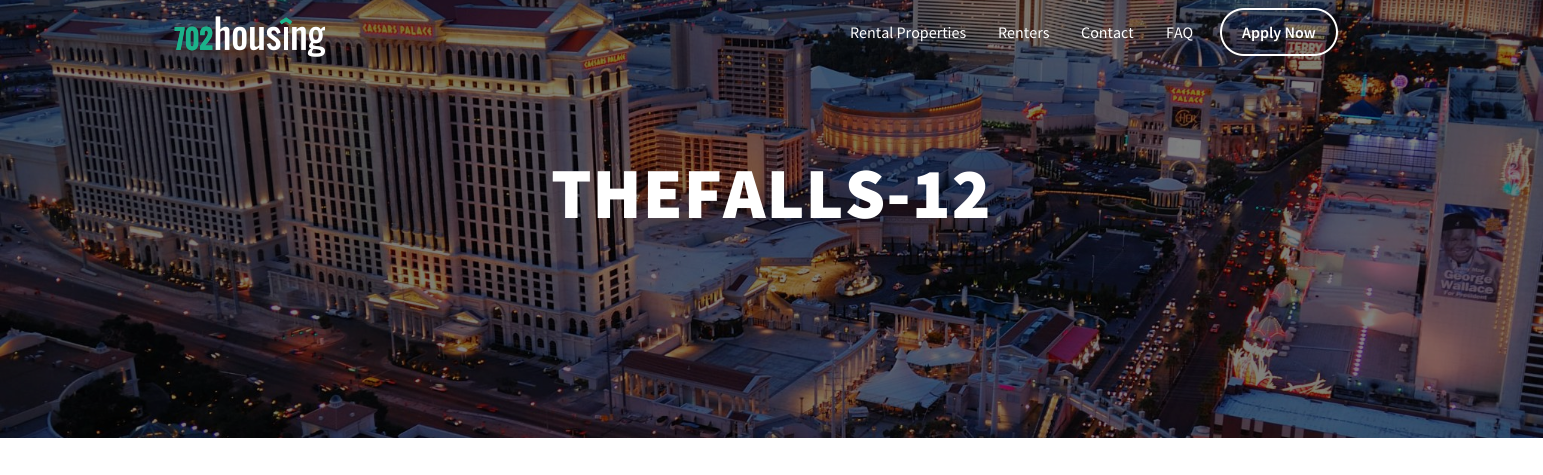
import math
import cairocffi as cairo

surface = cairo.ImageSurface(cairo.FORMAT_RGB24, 1543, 475)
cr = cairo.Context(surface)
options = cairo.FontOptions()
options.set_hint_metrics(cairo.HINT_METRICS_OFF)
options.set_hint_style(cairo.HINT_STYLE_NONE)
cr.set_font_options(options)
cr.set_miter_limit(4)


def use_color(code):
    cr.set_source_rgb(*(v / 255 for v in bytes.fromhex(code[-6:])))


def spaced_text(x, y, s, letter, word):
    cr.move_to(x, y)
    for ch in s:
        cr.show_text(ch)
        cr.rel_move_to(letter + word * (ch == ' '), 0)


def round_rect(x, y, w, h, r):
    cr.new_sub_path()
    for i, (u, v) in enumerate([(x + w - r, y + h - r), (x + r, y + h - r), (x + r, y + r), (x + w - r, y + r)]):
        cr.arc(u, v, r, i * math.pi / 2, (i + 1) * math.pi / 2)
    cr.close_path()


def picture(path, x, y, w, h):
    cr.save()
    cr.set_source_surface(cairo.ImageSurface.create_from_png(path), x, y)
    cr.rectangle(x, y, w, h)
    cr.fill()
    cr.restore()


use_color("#ffffff")
cr.paint()
picture("img3.png", 0, 0, 1543, 438)
picture("img1.png", 174, 16, 151, 41)
picture("img2.png", 174, 16, 152, 41)
cr.select_font_face("Source Sans Pro")
cr.set_font_size(16)
use_color("#ffffff")
cr.move_to(850, 38)
cr.show_text("Rental Properties")
cr.move_to(998, 38)
cr.show_text("Renters")
cr.move_to(1081, 38)
cr.show_text("Contact")
cr.move_to(1166, 38)
cr.show_text("FAQ")
round_rect(1221, 9, 116, 46, 23)
cr.stroke()
cr.select_font_face("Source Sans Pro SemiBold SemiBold")
cr.move_to(1242, 38)
cr.show_text("Apply Now")
cr.select_font_face("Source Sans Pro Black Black")
cr.set_font_size(72)
spaced_text(551, 218, "THEFALLS-12", 1, 0)
surface.write_to_png("result.png")
